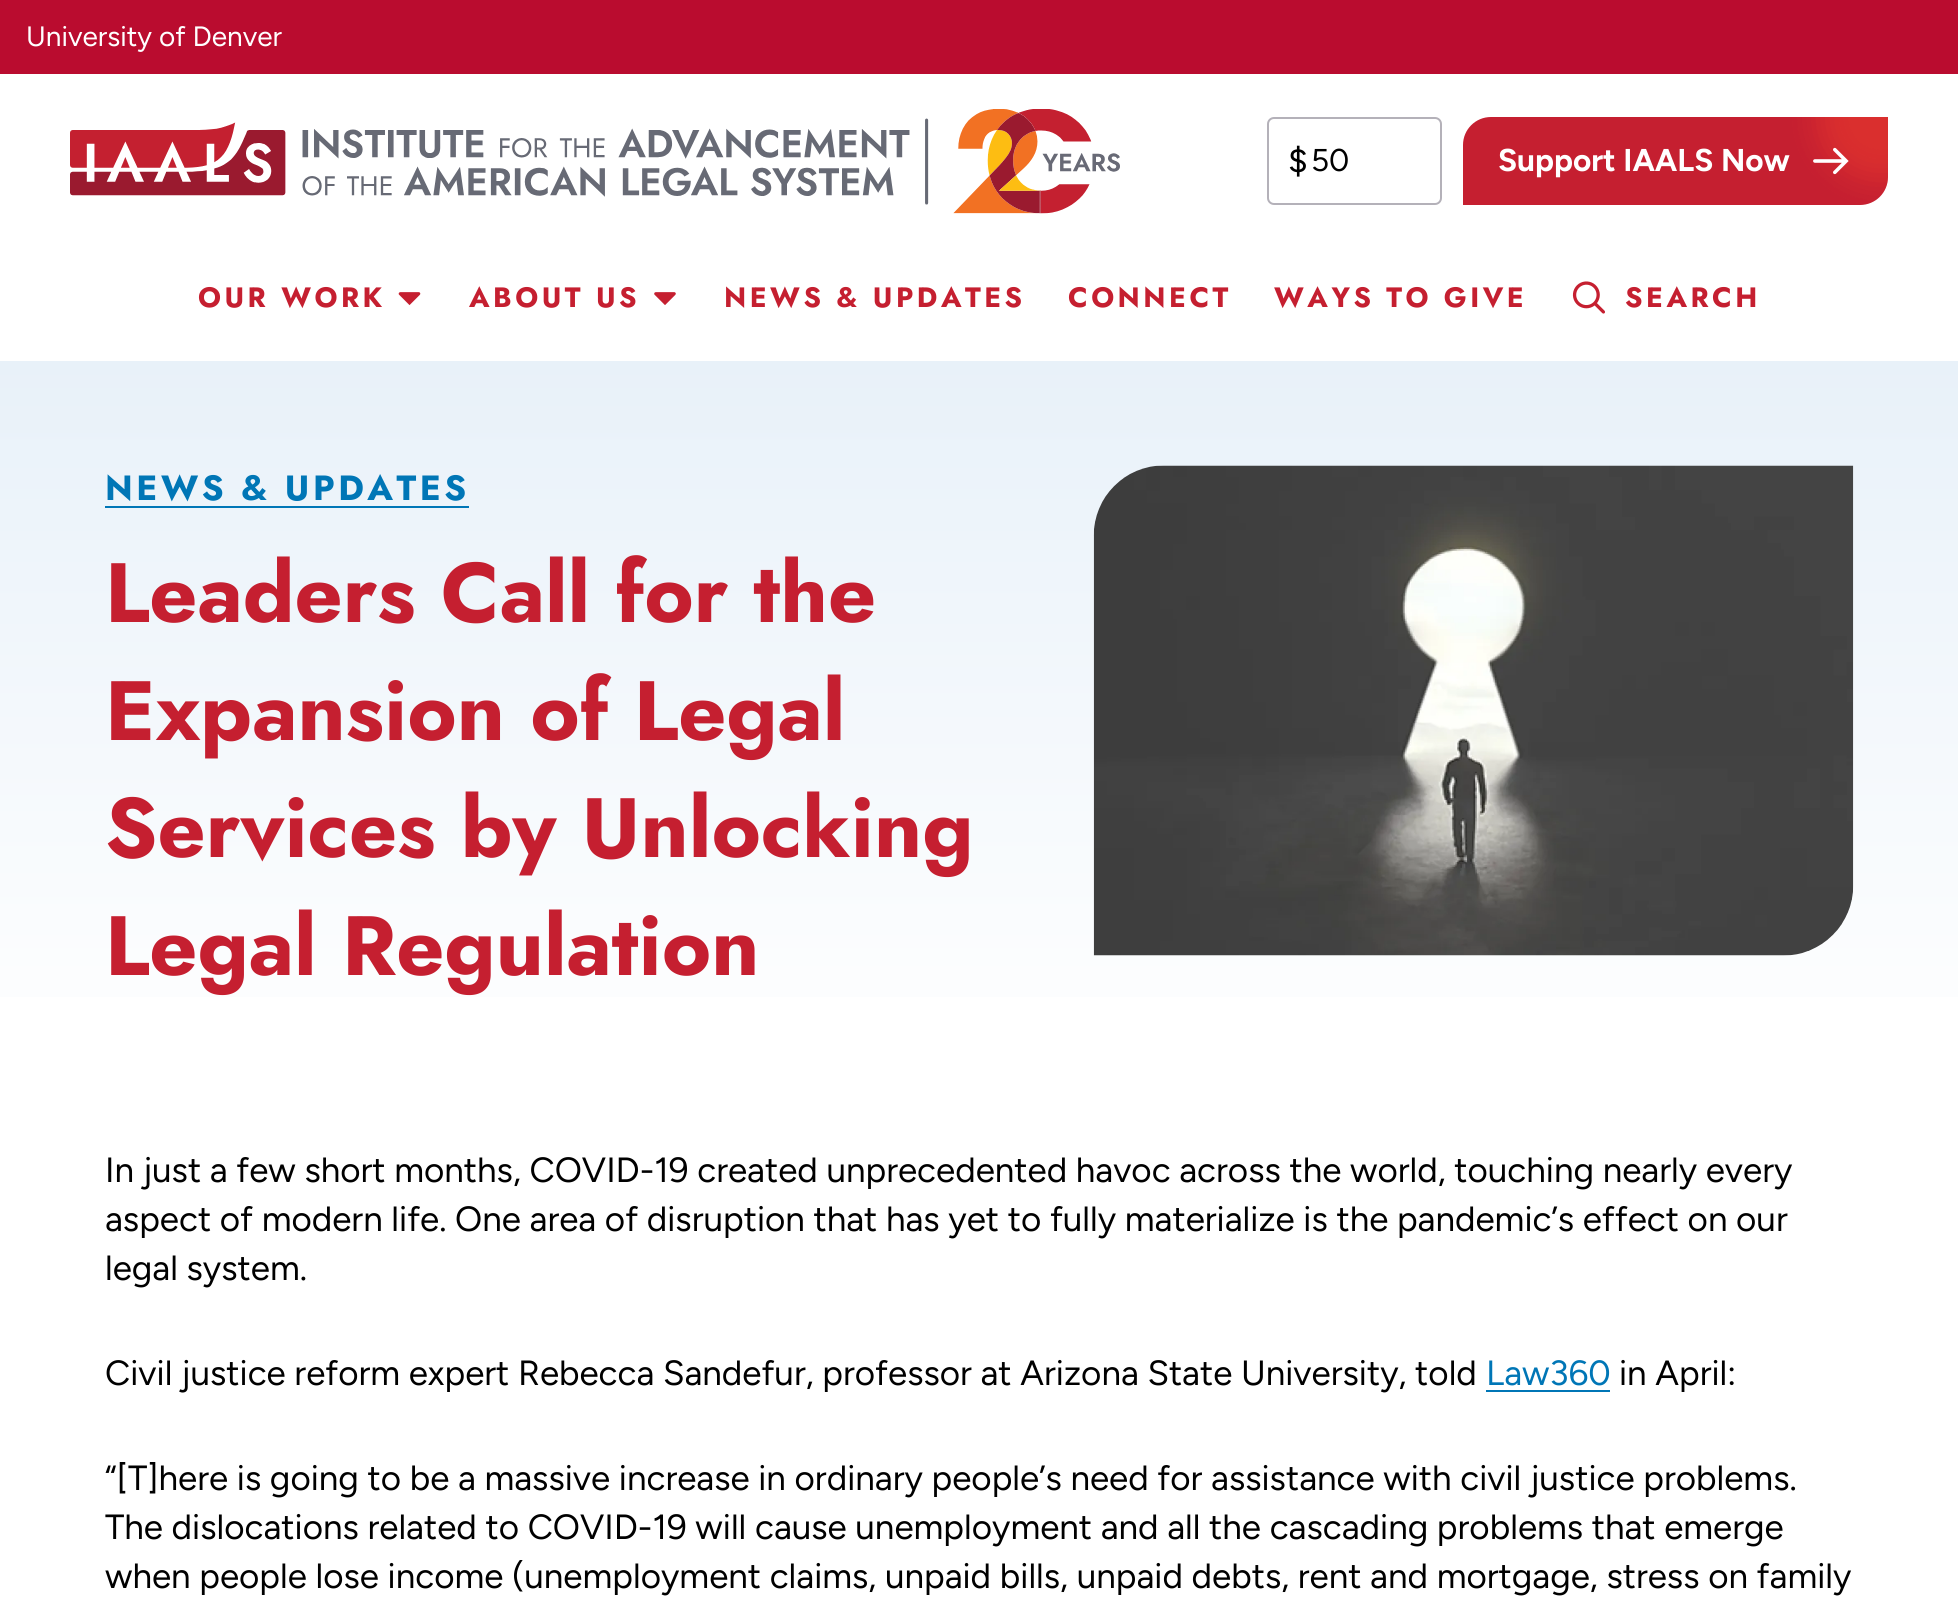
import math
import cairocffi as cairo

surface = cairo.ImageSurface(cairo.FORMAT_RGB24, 1958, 1613)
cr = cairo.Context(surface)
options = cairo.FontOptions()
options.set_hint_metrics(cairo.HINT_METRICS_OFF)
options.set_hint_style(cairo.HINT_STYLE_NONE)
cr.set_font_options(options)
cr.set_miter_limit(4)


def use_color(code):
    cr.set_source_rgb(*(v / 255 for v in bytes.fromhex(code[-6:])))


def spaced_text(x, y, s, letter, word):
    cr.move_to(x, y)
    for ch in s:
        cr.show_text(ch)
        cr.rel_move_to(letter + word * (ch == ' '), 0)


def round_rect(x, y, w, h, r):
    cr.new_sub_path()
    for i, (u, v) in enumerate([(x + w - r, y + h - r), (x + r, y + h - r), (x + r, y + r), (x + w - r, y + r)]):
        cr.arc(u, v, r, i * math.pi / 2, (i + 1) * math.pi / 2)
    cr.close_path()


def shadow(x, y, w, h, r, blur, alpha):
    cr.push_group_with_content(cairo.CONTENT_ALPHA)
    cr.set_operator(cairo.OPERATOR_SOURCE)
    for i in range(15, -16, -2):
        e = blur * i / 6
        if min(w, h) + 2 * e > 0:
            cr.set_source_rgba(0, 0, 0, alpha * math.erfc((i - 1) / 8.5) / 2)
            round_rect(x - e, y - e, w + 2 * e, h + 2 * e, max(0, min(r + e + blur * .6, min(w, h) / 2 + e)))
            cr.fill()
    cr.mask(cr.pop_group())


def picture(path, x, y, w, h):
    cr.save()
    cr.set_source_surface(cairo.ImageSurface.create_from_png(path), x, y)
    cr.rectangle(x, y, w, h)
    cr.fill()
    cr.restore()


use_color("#ffffff")
cr.paint()
use_color("#ba0c2f")
cr.rectangle(0, 0, 1958, 74)
cr.fill()
cr.select_font_face("Figtree")
cr.set_font_size(28)
use_color("#ffffff")
cr.move_to(26, 46)
cr.show_text("University of Denver")
picture("img1.png", 70, 109, 1050, 105)
round_rect(1268, 118, 173, 86, 6)
use_color("#b4b1b9")
cr.stroke()
cr.set_font_size(35)
use_color("#000000")
cr.move_to(1288, 173)
cr.show_text("$")
cr.set_font_size(31.5)
cr.move_to(1311, 171)
cr.show_text("50")
use_color("#c51f30")
cr.new_path()
cr.move_to(1491, 117)
cr.line_to(1888, 117)
cr.line_to(1888, 177)
cr.curve_to(1888, 192.5, 1875.5, 205, 1860, 205)
cr.line_to(1463, 205)
cr.line_to(1463, 145)
cr.curve_to(1463, 129.5, 1475.5, 117, 1491, 117)
cr.close_path()
cr.fill()
cr.save()
cr.new_path()
cr.move_to(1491, 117)
cr.line_to(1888, 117)
cr.line_to(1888, 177)
cr.curve_to(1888, 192.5, 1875.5, 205, 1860, 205)
cr.line_to(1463, 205)
cr.line_to(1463, 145)
cr.curve_to(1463, 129.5, 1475.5, 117, 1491, 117)
cr.close_path()
cr.clip()
use_color("#ef3e2d")
shadow(1818, 54, 126, 126, 63, 14, 0.5)
cr.restore()
cr.select_font_face("Figtree", cairo.FONT_SLANT_NORMAL, cairo.FONT_WEIGHT_BOLD)
use_color("#ffffff")
cr.move_to(1498, 171)
cr.show_text("Support IAALS Now")
picture("img2.png", 1813, 147, 36, 28)
cr.select_font_face("Jost", cairo.FONT_SLANT_NORMAL, cairo.FONT_WEIGHT_BOLD)
cr.set_font_size(28)
use_color("#c51f30")
spaced_text(198, 307, "OUR WORK", 3.5, 0)
picture("img3.png", 398, 292, 23, 14)
spaced_text(469, 307, "ABOUT US", 3.5, 0)
picture("img4.png", 654, 292, 22, 13)
spaced_text(724, 307, "NEWS & UPDATES", 3.5, 0)
spaced_text(1068, 307, "CONNECT", 3.5, 0)
spaced_text(1274, 307, "WAYS TO GIVE", 3.5, 0)
picture("img5.png", 1572, 281, 33, 33)
spaced_text(1625, 307, "SEARCH", 3.5, 0)
gradient = cairo.LinearGradient(979, 1075, 979, 361)
gradient.add_color_stop_rgba(0, 1, 1, 1, 1)
gradient.add_color_stop_rgba(1, 0.91, 0.945, 0.976, 1)
cr.set_source(gradient)
cr.rectangle(0, 361, 1958, 636)
cr.fill()
cr.set_font_size(35)
use_color("#0076b6")
spaced_text(105, 500, "NEWS & UPDATES", 3.5, 0)
gradient = cairo.LinearGradient(287, 457, 287, 508)
gradient.add_color_stop_rgba(0, 0.925, 0.953, 0.98, 1)
gradient.add_color_stop_rgba(0.97, 0.925, 0.953, 0.98, 1)
gradient.add_color_stop_rgba(0.97, 0, 0.463, 0.714, 1)
gradient.add_color_stop_rgba(1, 0, 0.463, 0.714, 1)
cr.set_source(gradient)
cr.rectangle(105, 506, 364, 2)
cr.fill()
cr.set_font_size(84)
use_color("#c51f30")
cr.move_to(105, 622)
cr.show_text("Leaders Call for the")
cr.move_to(105, 740)
cr.show_text("Expansion of Legal")
cr.move_to(105, 857)
cr.show_text("Services by Unlocking")
cr.move_to(105, 975)
cr.show_text("Legal Regulation")
picture("img6.png", 1093, 465, 761, 491)
cr.select_font_face("Figtree")
cr.set_font_size(35)
use_color("#000000")
cr.move_to(105, 1182)
cr.show_text("In just a few short months, COVID-19 created unprecedented havoc across the world, touching nearly every")
cr.move_to(105, 1231)
cr.show_text("aspect of modern life. One area of disruption that has yet to fully materialize is the pandemic’s effect on our")
cr.move_to(105, 1280)
cr.show_text("legal system.")
cr.move_to(105, 1385)
cr.show_text("Civil justice reform expert Rebecca Sandefur, professor at Arizona State University, told")
use_color("#0076b6")
cr.move_to(1486, 1385)
cr.show_text("Law360")
cr.rectangle(1486, 1390, 124, 2)
cr.fill()
use_color("#000000")
cr.move_to(1619, 1385)
cr.show_text("in April:")
cr.move_to(105, 1490)
cr.show_text("“[T]here is going to be a massive increase in ordinary people’s need for assistance with civil justice problems.")
cr.move_to(105, 1539)
cr.show_text("The dislocations related to COVID-19 will cause unemployment and all the cascading problems that emerge")
cr.move_to(105, 1588)
cr.show_text("when people lose income (unemployment claims, unpaid bills, unpaid debts, rent and mortgage, stress on family")
surface.write_to_png("result.png")
